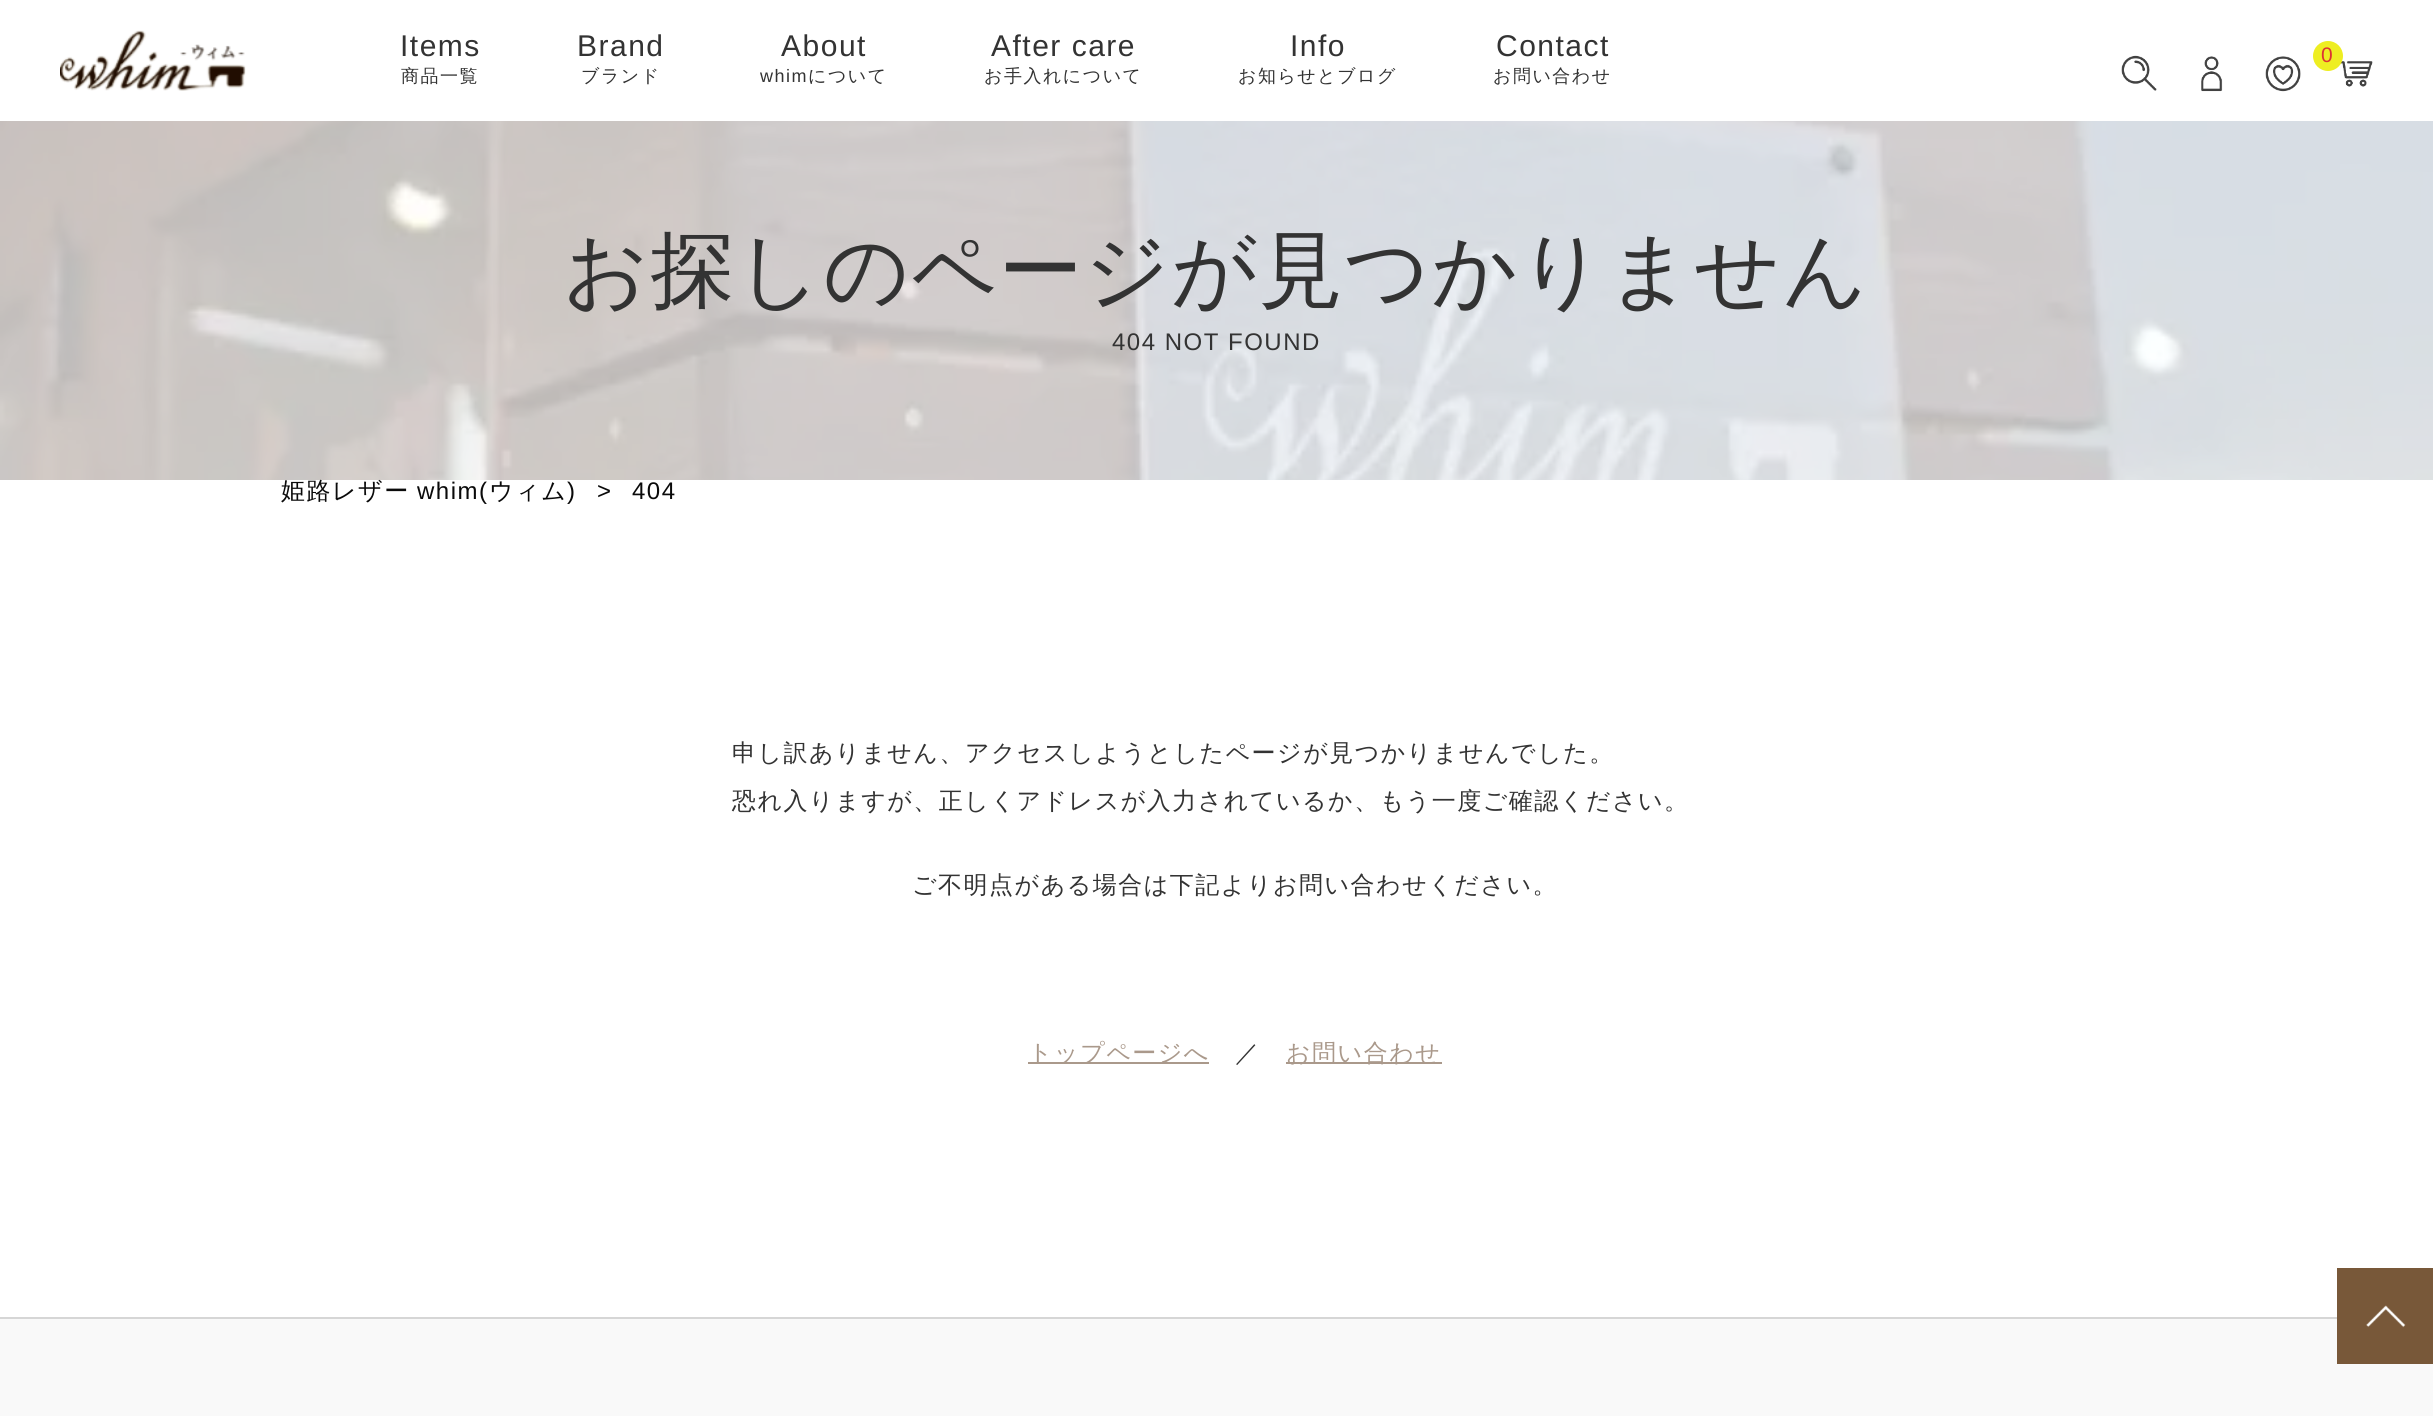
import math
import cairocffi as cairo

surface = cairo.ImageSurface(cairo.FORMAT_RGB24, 2433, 1416)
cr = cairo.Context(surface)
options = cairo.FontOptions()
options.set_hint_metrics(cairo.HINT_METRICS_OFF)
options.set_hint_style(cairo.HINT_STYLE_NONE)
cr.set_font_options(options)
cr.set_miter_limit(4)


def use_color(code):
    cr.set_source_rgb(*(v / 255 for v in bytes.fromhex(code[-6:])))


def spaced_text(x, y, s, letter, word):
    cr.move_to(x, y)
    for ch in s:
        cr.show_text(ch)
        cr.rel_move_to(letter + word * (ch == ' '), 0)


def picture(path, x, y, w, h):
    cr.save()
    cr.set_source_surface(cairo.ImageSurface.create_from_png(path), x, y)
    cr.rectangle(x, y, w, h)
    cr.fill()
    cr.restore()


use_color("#ffffff")
cr.paint()
picture("img1.png", 60, 30, 186, 61)
cr.select_font_face("Liberation Sans")
cr.set_font_size(30)
use_color("#333333")
spaced_text(400, 56, "Items", 1.5, 0)
cr.select_font_face("WenQuanYi Zen Hei Medium")
cr.set_font_size(18)
spaced_text(401, 82, "商品一覧", 1.5, 0)
cr.select_font_face("Liberation Sans")
cr.set_font_size(30)
spaced_text(577, 56, "Brand", 1.5, 0)
cr.select_font_face("WenQuanYi Zen Hei Medium")
cr.set_font_size(18)
spaced_text(581, 82, "ブランド", 1.5, 0)
cr.select_font_face("Liberation Sans")
cr.set_font_size(30)
spaced_text(781, 56, "About", 1.5, 0)
cr.set_font_size(18)
spaced_text(760, 82, "whim", 1.5, 0)
cr.select_font_face("WenQuanYi Zen Hei Medium")
spaced_text(808, 82, "について", 1.5, 0)
cr.select_font_face("Liberation Sans")
cr.set_font_size(30)
spaced_text(991, 56, "After care", 1.5, 0)
cr.select_font_face("WenQuanYi Zen Hei Medium")
cr.set_font_size(18)
spaced_text(984, 82, "お手入れについて", 1.5, 0)
cr.select_font_face("Liberation Sans")
cr.set_font_size(30)
spaced_text(1290, 56, "Info", 1.5, 0)
cr.select_font_face("WenQuanYi Zen Hei Medium")
cr.set_font_size(18)
spaced_text(1238, 82, "お知らせとブログ", 1.5, 0)
cr.select_font_face("Liberation Sans")
cr.set_font_size(30)
spaced_text(1496, 56, "Contact", 1.5, 0)
cr.select_font_face("WenQuanYi Zen Hei Medium")
cr.set_font_size(18)
spaced_text(1493, 82, "お問い合わせ", 1.5, 0)
picture("img2.png", 2121, 55, 36, 36)
picture("img3.png", 2201, 56, 22, 36)
picture("img4.png", 2265, 56, 36, 36)
picture("img5.png", 2340, 61, 33, 26)
use_color("#eeee22")
cr.arc(2328, 56, 15, 0, 2 * math.pi)
cr.fill()
cr.select_font_face("Liberation Sans")
cr.set_font_size(21)
use_color("#dd3333")
spaced_text(2321, 62, "0", 1.5, 0)
picture("img6.png", 0, 121, 2433, 359)
cr.select_font_face("WenQuanYi Zen Hei Medium")
cr.set_font_size(84)
use_color("#333333")
spaced_text(563, 299, "お探しのページが見つかりません", 1.5, 0)
cr.select_font_face("Liberation Sans")
cr.set_font_size(24)
spaced_text(1112, 350, "404 NOT FOUND", 1.5, 0)
cr.select_font_face("WenQuanYi Zen Hei Medium")
use_color("#0a0a0a")
spaced_text(281, 499, "姫路レザー", 1.5, 0)
cr.select_font_face("Liberation Sans")
spaced_text(417, 499, "whim(", 1.5, 0)
cr.select_font_face("WenQuanYi Zen Hei Medium")
spaced_text(489, 499, "ウィム", 1.5, 0)
cr.select_font_face("Liberation Sans")
spaced_text(567, 499, ")", 1.5, 0)
spaced_text(597, 499, ">", 1.5, 0)
spaced_text(632, 499, "404", 1.5, 0)
cr.select_font_face("WenQuanYi Zen Hei Medium")
use_color("#333333")
spaced_text(732, 761, "申し訳ありません、アクセスしようとしたページが見つかりませんでした。", 1.5, 0)
spaced_text(732, 809, "恐れ入りますが、正しくアドレスが入力されているか、もう一度ご確認ください。", 1.5, 0)
spaced_text(912, 893, "ご不明点がある場合は下記よりお問い合わせください。", 1.5, 0)
use_color("#aa998b")
cr.rectangle(1028, 1062, 181, 2)
cr.fill()
spaced_text(1028, 1061, "トップページへ", 1.5, 0)
use_color("#333333")
spaced_text(1235, 1061, "／", 1.5, 0)
use_color("#aa998b")
cr.rectangle(1286, 1062, 156, 2)
cr.fill()
spaced_text(1286, 1061, "お問い合わせ", 1.5, 0)
use_color("#f9f9f9")
cr.rectangle(0, 1319, 2433, 97)
cr.fill()
use_color("#785839")
cr.rectangle(2337, 1268, 96, 96)
cr.fill()
picture("img7.png", 2366, 1305, 40, 23)
use_color("#d6d6d6")
cr.rectangle(0, 1317, 2337, 2)
cr.fill()
surface.write_to_png("result.png")
